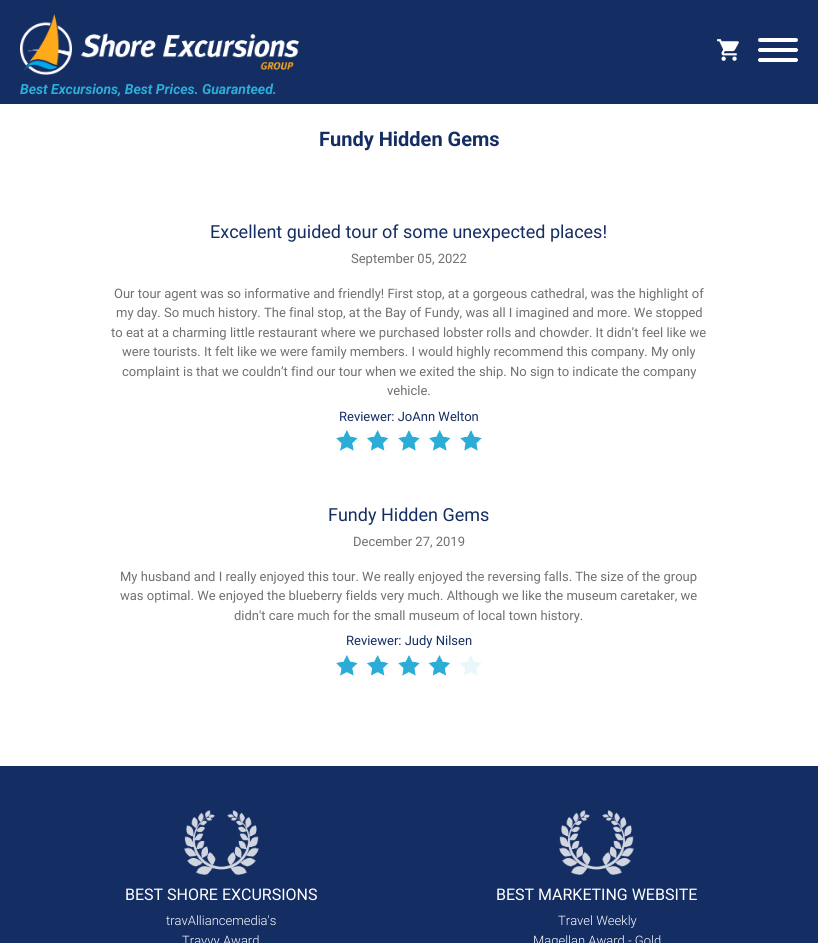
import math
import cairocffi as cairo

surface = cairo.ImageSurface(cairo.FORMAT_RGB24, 818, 943)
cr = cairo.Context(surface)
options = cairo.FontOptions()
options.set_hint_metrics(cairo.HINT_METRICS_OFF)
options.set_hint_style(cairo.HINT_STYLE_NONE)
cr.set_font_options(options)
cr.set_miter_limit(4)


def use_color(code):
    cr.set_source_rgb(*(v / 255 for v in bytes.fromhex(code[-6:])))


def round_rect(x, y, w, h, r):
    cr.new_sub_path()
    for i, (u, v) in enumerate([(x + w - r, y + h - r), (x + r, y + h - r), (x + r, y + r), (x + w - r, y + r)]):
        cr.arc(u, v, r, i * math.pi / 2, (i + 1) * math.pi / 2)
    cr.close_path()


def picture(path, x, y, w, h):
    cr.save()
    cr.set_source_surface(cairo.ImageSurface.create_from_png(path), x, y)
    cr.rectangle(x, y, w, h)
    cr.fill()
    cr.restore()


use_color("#ffffff")
cr.paint()
use_color("#142d63")
cr.rectangle(0, 0, 818, 104)
cr.fill()
picture("img1.png", 717, 39, 22, 22)
use_color("#ffffff")
round_rect(758, 48, 40, 4, 2)
cr.fill()
round_rect(758, 38, 40, 4, 2)
cr.fill()
round_rect(758, 58, 40, 4, 2)
cr.fill()
picture("img2.png", 20, 14, 279, 61)
cr.select_font_face("Roboto", cairo.FONT_SLANT_ITALIC, cairo.FONT_WEIGHT_BOLD)
cr.set_font_size(14)
use_color("#2cadd8")
cr.move_to(20, 94)
cr.show_text("Best Excursions, Best Prices. Guaranteed.")
cr.select_font_face("Roboto", cairo.FONT_SLANT_NORMAL, cairo.FONT_WEIGHT_BOLD)
cr.set_font_size(20)
use_color("#142d63")
cr.move_to(319, 146)
cr.show_text("Fundy Hidden Gems")
cr.select_font_face("Roboto")
cr.set_font_size(18)
cr.move_to(210, 238)
cr.show_text("Excellent guided tour of some unexpected places!")
cr.set_font_size(13)
use_color("#707070")
cr.move_to(351, 263)
cr.show_text("September 05, 2022")
cr.move_to(114, 298)
cr.show_text("Our tour agent was so informative and friendly! First stop, at a gorgeous cathedral, was the highlight of")
cr.move_to(116, 317)
cr.show_text("my day. So much history. The final stop, at the Bay of Fundy, was all I imagined and more. We stopped")
cr.move_to(111, 337)
cr.show_text("to eat at a charming little restaurant where we purchased lobster rolls and chowder. It didn’t feel like we")
cr.move_to(122, 356)
cr.show_text("were tourists. It felt like we were family members. I would highly recommend this company. My only")
cr.move_to(122, 376)
cr.show_text("complaint is that we couldn’t find our tour when we exited the ship. No sign to indicate the company")
cr.move_to(387, 395)
cr.show_text("vehicle.")
use_color("#142d63")
cr.move_to(339, 421)
cr.show_text("Reviewer: JoAnn Welton")
picture("img3.png", 336, 430, 146, 21)
cr.set_font_size(18)
cr.move_to(328, 521)
cr.show_text("Fundy Hidden Gems")
cr.set_font_size(13)
use_color("#707070")
cr.move_to(353, 546)
cr.show_text("December 27, 2019")
cr.move_to(120, 581)
cr.show_text("My husband and I really enjoyed this tour. We really enjoyed the reversing falls. The size of the group")
cr.move_to(120, 600)
cr.show_text("was optimal. We enjoyed the blueberry fields very much. Although we like the museum caretaker, we")
cr.move_to(234, 620)
cr.show_text("didn't care much for the small museum of local town history.")
use_color("#142d63")
cr.move_to(346, 645)
cr.show_text("Reviewer: Judy Nilsen")
picture("img4.png", 336, 655, 146, 21)
cr.rectangle(0, 766, 818, 177)
cr.fill()
picture("img5.png", 184, 810, 75, 65)
cr.set_font_size(16)
use_color("#ffffff")
cr.move_to(125, 900)
cr.show_text("BEST SHORE EXCURSIONS")
cr.select_font_face("Roboto Light")
cr.set_font_size(13)
cr.move_to(166, 925)
cr.show_text("travAlliancemedia's")
cr.move_to(182, 945)
cr.show_text("Travvy Award")
picture("img6.png", 559, 810, 75, 65)
cr.select_font_face("Roboto")
cr.set_font_size(16)
cr.move_to(496, 900)
cr.show_text("BEST MARKETING WEBSITE")
cr.select_font_face("Roboto Light")
cr.set_font_size(13)
cr.move_to(558, 925)
cr.show_text("Travel Weekly")
cr.move_to(533, 945)
cr.show_text("Magellan Award - Gold")
surface.write_to_png("result.png")
